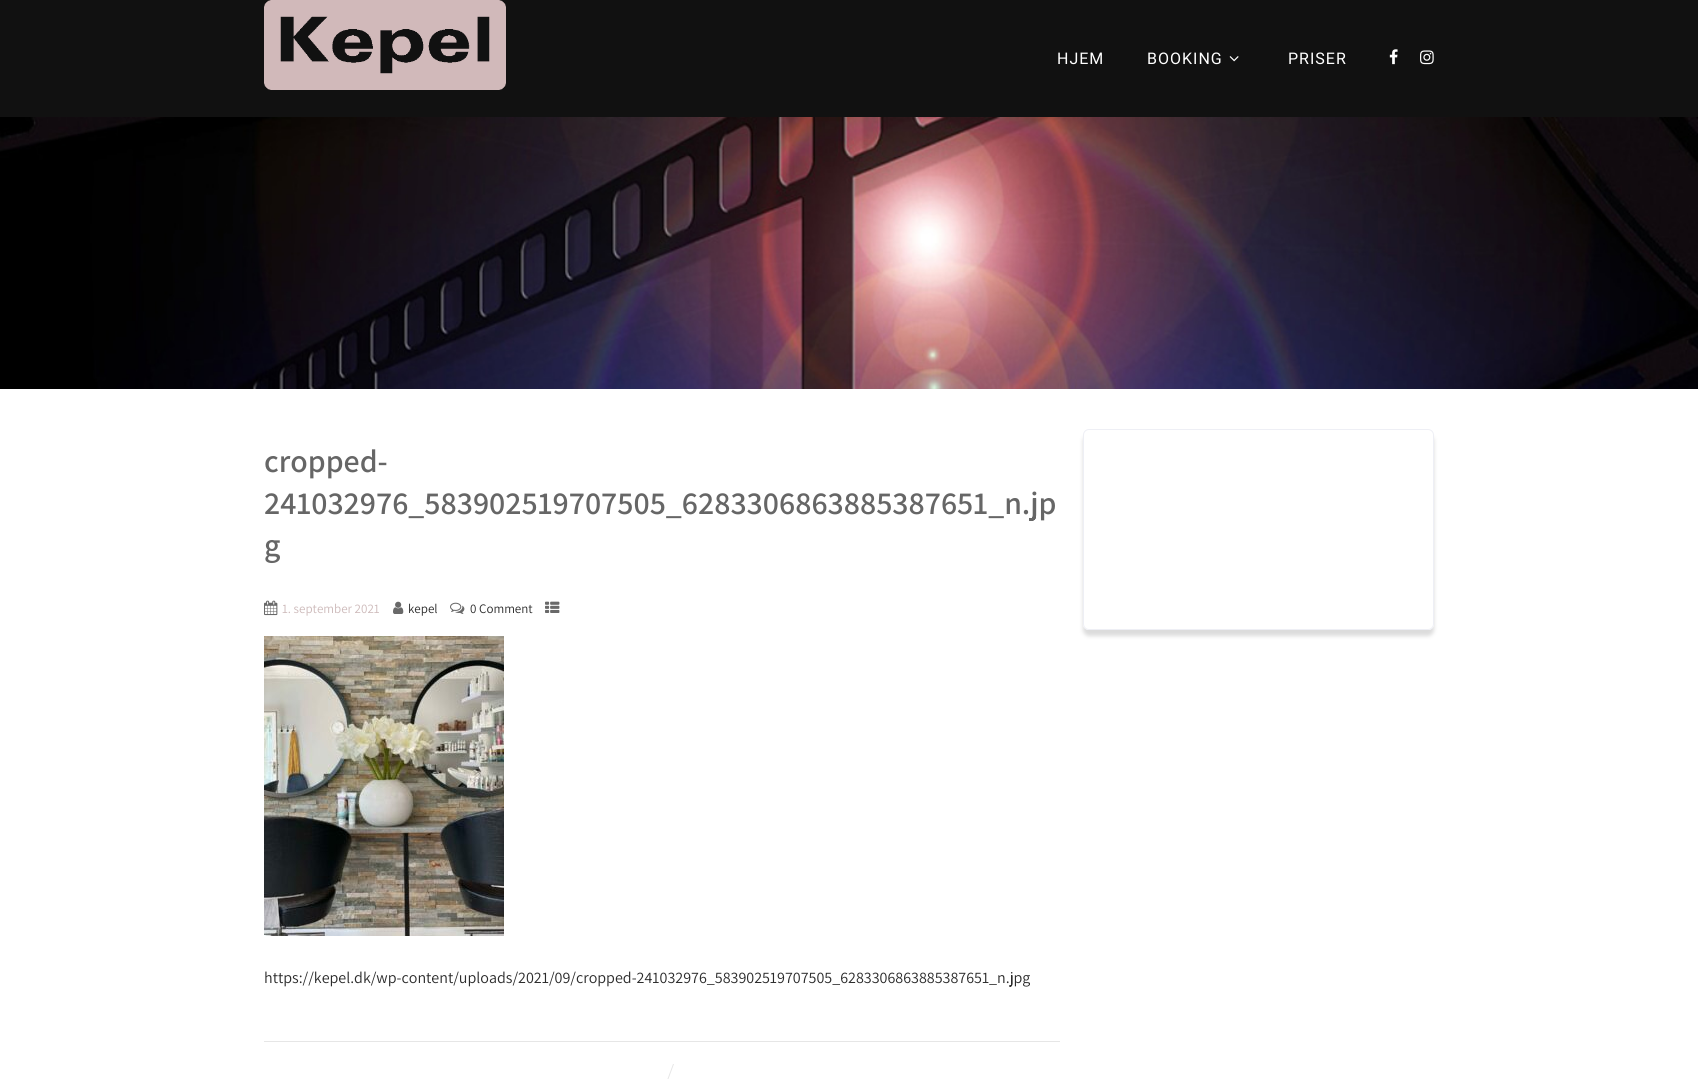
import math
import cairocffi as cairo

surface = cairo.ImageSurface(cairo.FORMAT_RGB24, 1698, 1079)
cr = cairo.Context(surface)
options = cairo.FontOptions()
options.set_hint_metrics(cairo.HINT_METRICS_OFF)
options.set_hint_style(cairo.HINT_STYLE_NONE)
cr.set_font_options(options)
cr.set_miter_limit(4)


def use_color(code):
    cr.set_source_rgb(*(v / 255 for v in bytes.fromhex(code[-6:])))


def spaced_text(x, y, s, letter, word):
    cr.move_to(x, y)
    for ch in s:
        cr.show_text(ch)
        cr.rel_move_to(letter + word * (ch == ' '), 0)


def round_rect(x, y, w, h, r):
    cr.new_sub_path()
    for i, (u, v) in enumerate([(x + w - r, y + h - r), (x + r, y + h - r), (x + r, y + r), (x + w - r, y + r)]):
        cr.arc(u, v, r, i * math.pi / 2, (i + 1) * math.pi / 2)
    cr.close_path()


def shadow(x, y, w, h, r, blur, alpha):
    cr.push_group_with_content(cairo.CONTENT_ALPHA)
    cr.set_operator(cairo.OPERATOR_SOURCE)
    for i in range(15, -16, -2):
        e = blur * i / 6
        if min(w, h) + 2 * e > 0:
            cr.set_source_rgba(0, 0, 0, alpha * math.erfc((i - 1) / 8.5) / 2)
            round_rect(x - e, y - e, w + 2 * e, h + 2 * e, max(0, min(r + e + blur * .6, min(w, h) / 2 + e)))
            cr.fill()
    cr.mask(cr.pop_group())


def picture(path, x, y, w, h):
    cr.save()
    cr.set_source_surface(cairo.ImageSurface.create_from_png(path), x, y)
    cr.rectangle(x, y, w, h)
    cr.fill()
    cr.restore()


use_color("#ffffff")
cr.paint()
use_color("#111111")
cr.rectangle(0, 0, 1698, 117)
cr.fill()
picture("img1.png", 264, 0, 242, 90)
cr.select_font_face("Roboto")
cr.set_font_size(16)
use_color("#ffffff")
spaced_text(1057, 64, "HJEM", 1, 0)
spaced_text(1147, 64, "BOOKING", 1, 0)
picture("img2.png", 1229, 56, 10, 6)
spaced_text(1288, 64, "PRISER", 1, 0)
picture("img3.png", 1389, 49, 9, 16)
picture("img4.png", 1420, 50, 14, 15)
picture("img5.png", 0, 117, 1698, 272)
cr.select_font_face("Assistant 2 ExtraLight")
cr.set_font_size(32)
use_color("#666666")
cr.move_to(264, 472)
cr.show_text("cropped-")
cr.move_to(264, 514)
cr.show_text("241032976_583902519707505_6283306863885387651_n.jp")
cr.move_to(264, 556)
cr.show_text("g")
picture("img6.png", 264, 600, 14, 16)
cr.select_font_face("Assistant ExtraLight")
cr.set_font_size(13)
use_color("#cdbaba")
cr.move_to(282, 613)
cr.show_text("1. september 2021")
picture("img7.png", 393, 601, 11, 13)
use_color("#2b2b2b")
cr.move_to(408, 613)
cr.show_text("kepel")
picture("img8.png", 450, 602, 15, 12)
cr.move_to(470, 613)
cr.show_text("0 Comment")
picture("img9.png", 545, 601, 15, 12)
picture("img10.png", 264, 636, 240, 300)
cr.set_font_size(16)
cr.move_to(264, 983)
cr.show_text("https://kepel.dk/wp-content/uploads/2021/09/cropped-241032976_583902519707505_6283306863885387651_n.jpg")
use_color("#e6e6e6")
cr.rectangle(264, 1041, 796, 1)
cr.fill()
cr.new_path()
cr.move_to(673, 1064)
cr.line_to(674, 1064)
cr.line_to(650, 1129)
cr.line_to(649, 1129)
cr.close_path()
cr.fill()
cr.save()
cr.set_fill_rule(cairo.FILL_RULE_EVEN_ODD)
cr.new_path()
cr.move_to(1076, 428)
cr.line_to(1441, 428)
cr.line_to(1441, 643)
cr.line_to(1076, 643)
cr.close_path()
cr.move_to(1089, 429)
cr.line_to(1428, 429)
cr.curve_to(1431.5, 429, 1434, 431.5, 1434, 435)
cr.line_to(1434, 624)
cr.curve_to(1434, 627.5, 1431.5, 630, 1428, 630)
cr.line_to(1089, 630)
cr.curve_to(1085.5, 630, 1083, 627.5, 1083, 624)
cr.line_to(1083, 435)
cr.curve_to(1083, 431.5, 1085.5, 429, 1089, 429)
cr.close_path()
cr.clip()
use_color("#dcdcdc")
shadow(1083, 435, 351, 201, 6, 2, 1)
cr.restore()
round_rect(1083.5, 429.5, 350, 200, 5.5)
use_color("#eeeff5")
cr.set_line_width(1)
cr.stroke()
surface.write_to_png("result.png")
